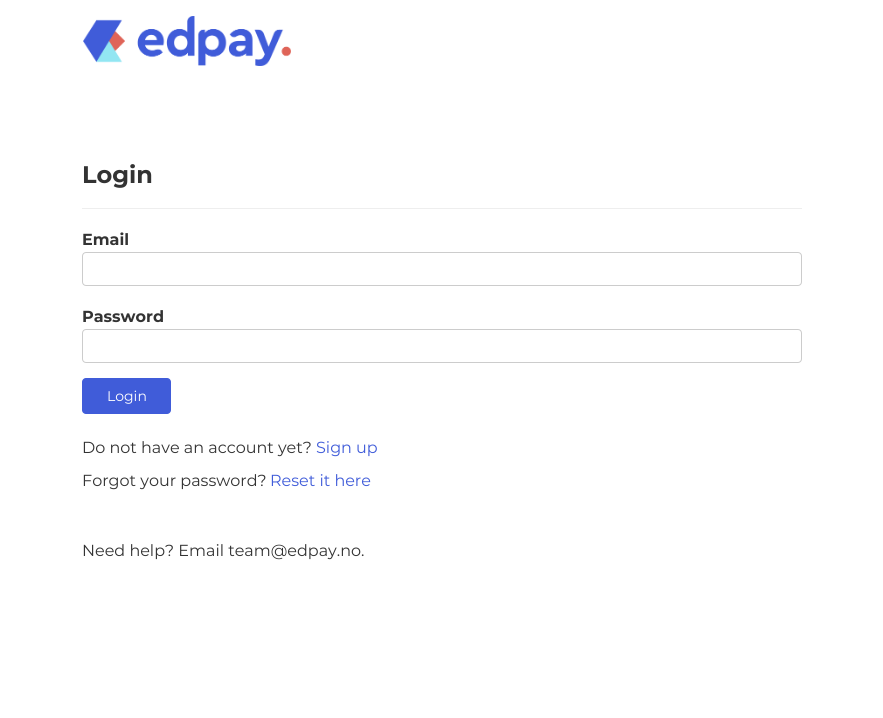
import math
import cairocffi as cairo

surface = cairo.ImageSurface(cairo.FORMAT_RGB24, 883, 718)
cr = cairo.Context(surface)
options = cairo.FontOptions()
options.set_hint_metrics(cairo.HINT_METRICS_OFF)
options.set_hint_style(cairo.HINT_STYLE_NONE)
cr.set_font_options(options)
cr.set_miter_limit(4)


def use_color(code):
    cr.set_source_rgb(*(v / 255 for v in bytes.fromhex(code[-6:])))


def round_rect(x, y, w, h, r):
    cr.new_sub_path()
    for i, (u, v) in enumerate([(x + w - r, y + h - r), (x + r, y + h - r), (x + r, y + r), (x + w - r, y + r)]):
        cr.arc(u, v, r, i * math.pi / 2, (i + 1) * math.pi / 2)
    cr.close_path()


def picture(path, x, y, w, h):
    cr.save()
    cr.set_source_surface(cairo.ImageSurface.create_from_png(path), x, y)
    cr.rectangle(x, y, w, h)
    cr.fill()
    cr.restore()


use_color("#ffffff")
cr.paint()
picture("img1.png", 83, 16, 208, 50)
cr.select_font_face("Montserrat", cairo.FONT_SLANT_NORMAL, cairo.FONT_WEIGHT_BOLD)
cr.set_font_size(24)
use_color("#333333")
cr.move_to(82, 183)
cr.show_text("Login")
use_color("#eeeeee")
cr.rectangle(82, 208, 720, 1)
cr.fill()
cr.set_font_size(16)
use_color("#333333")
cr.move_to(82, 245)
cr.show_text("Email")
round_rect(82.5, 252.5, 719, 33, 3.5)
use_color("#cccccc")
cr.set_line_width(1)
cr.stroke()
use_color("#333333")
cr.move_to(82, 322)
cr.show_text("Password")
round_rect(82.5, 329.5, 719, 33, 3.5)
use_color("#cccccc")
cr.stroke()
use_color("#405cd9")
round_rect(82, 378, 89, 36, 4)
cr.fill()
cr.select_font_face("Montserrat")
cr.set_font_size(14)
use_color("#ffffff")
cr.move_to(107, 401)
cr.show_text("Login")
cr.set_font_size(16)
use_color("#333333")
cr.move_to(82, 453)
cr.show_text("Do not have an account yet?")
use_color("#405cd9")
cr.move_to(316, 453)
cr.show_text("Sign up")
use_color("#333333")
cr.move_to(82, 486)
cr.show_text("Forgot your password?")
use_color("#405cd9")
cr.move_to(270, 486)
cr.show_text("Reset it here")
use_color("#333333")
cr.move_to(82, 556)
cr.show_text("Need help? Email team@edpay.no.")
surface.write_to_png("result.png")
